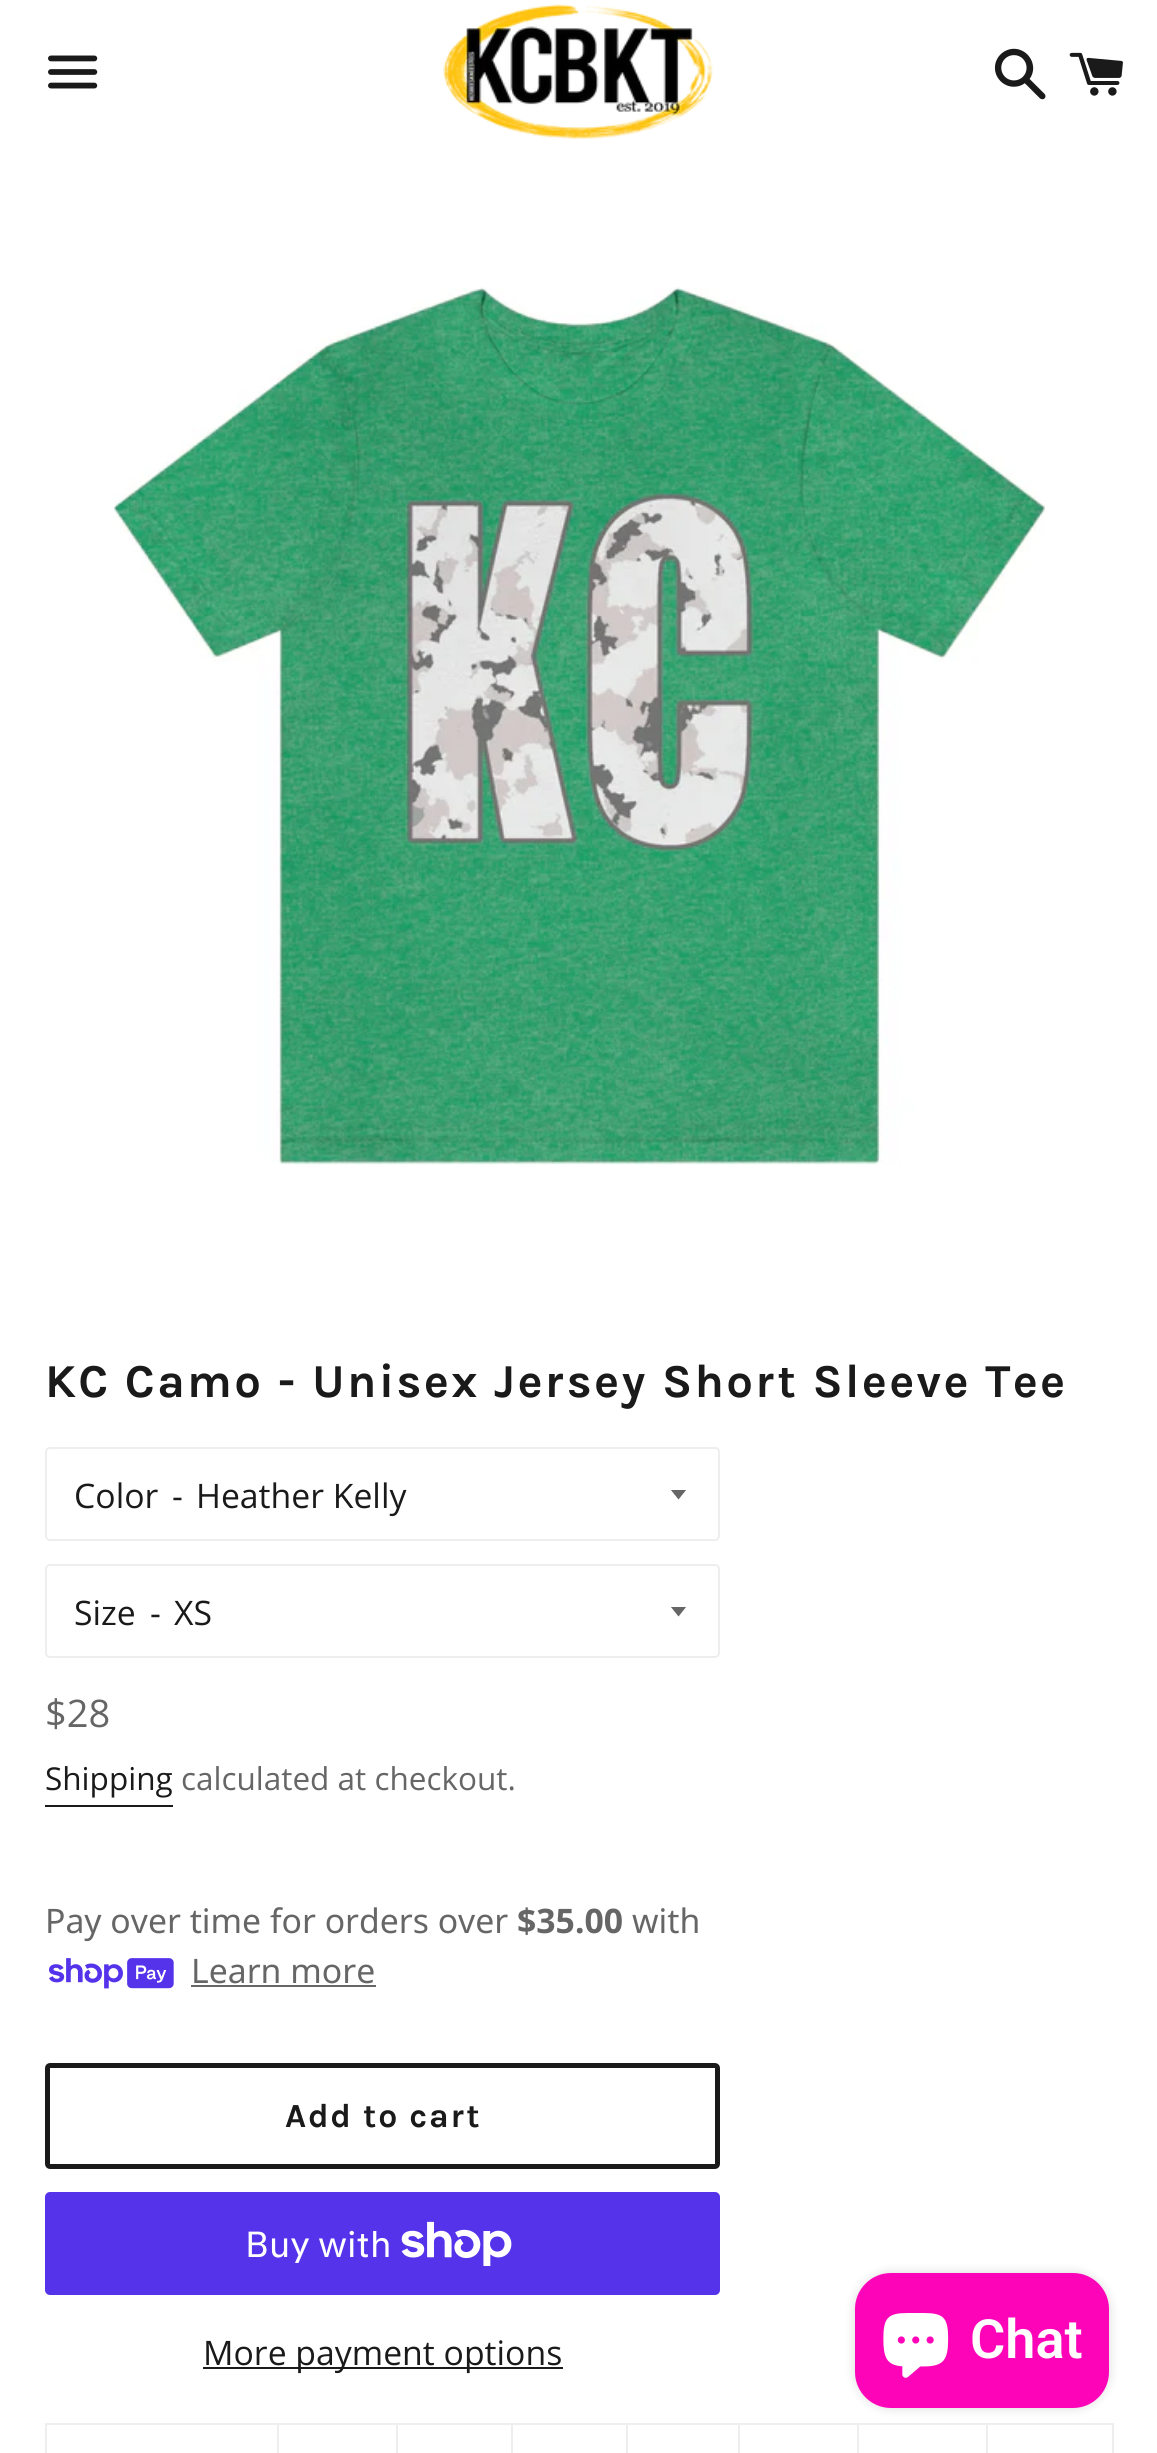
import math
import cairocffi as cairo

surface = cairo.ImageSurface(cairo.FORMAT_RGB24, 1157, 2453)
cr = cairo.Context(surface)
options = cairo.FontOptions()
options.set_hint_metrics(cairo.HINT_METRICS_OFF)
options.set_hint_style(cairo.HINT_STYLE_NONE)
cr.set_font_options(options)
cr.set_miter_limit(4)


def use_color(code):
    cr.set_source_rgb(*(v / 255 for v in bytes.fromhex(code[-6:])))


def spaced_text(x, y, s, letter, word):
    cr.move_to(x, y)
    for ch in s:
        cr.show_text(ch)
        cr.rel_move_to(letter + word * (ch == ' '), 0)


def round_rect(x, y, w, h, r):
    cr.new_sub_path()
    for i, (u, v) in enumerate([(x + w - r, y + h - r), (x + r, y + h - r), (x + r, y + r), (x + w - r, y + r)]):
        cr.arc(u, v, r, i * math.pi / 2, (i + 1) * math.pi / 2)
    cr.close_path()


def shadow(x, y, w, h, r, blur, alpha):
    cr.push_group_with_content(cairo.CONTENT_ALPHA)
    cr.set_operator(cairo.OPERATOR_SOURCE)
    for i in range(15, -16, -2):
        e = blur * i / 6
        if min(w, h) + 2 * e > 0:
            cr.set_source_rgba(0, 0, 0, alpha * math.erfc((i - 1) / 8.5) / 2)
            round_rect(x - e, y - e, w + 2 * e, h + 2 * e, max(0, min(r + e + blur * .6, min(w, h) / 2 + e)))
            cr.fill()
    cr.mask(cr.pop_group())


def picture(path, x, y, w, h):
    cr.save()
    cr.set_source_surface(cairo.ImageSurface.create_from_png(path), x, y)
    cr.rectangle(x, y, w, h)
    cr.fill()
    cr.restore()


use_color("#ffffff")
cr.paint()
picture("img1.png", 48, 55, 50, 34)
picture("img2.png", 443, 4, 270, 135)
picture("img3.png", 994, 48, 52, 52)
picture("img4.png", 1069, 52, 54, 44)
picture("img5.png", 114, 287, 935, 878)
cr.select_font_face("Karla", cairo.FONT_SLANT_NORMAL, cairo.FONT_WEIGHT_BOLD)
cr.set_font_size(47.25)
use_color("#1a1a1a")
spaced_text(45, 1397, "KC Camo - Unisex Jersey Short Sleeve Tee", 2.35, 0)
round_rect(46, 1448, 673, 92, 4)
use_color("#eeeeee")
cr.stroke()
cr.select_font_face("Open Sans")
cr.set_font_size(33.75)
use_color("#1a1a1a")
cr.move_to(74, 1508)
cr.show_text("Color")
cr.move_to(172, 1508)
cr.show_text("-")
cr.save()
cr.rectangle(671, 1490, 18, 11)
cr.clip()
use_color("#666666")
cr.new_path()
cr.move_to(670.5, 1489.5)
cr.line_to(678.5, 1499.5)
cr.line_to(686.5, 1489.5)
cr.close_path()
cr.fill()
cr.restore()
cr.move_to(196, 1508)
cr.show_text("Heather Kelly")
round_rect(46, 1565, 673, 92, 4)
use_color("#eeeeee")
cr.stroke()
use_color("#1a1a1a")
cr.move_to(74, 1625)
cr.show_text("Size")
cr.move_to(150, 1625)
cr.show_text("-")
cr.save()
cr.rectangle(671, 1607, 18, 11)
cr.clip()
use_color("#666666")
cr.new_path()
cr.move_to(670.5, 1606.5)
cr.line_to(678.5, 1616.5)
cr.line_to(686.5, 1606.5)
cr.close_path()
cr.fill()
cr.restore()
cr.move_to(174, 1625)
cr.show_text("XS")
cr.set_font_size(38)
use_color("#666666")
cr.move_to(45, 1727)
cr.show_text("$28")
cr.set_font_size(31.5)
use_color("#1a1a1a")
cr.move_to(45, 1790)
cr.show_text("Shipping")
cr.rectangle(45, 1805, 128, 2)
cr.fill()
use_color("#666666")
cr.move_to(181, 1790)
cr.show_text("calculated at checkout.")
cr.select_font_face("Noto Sans")
cr.set_font_size(33.75)
cr.move_to(45, 1933)
cr.show_text("Pay over time for orders over")
cr.select_font_face("Noto Sans", cairo.FONT_SLANT_NORMAL, cairo.FONT_WEIGHT_BOLD)
cr.move_to(517, 1933)
cr.show_text("$35.00")
cr.select_font_face("Noto Sans")
cr.move_to(632, 1933)
cr.show_text("with")
picture("img6.png", 49, 1958, 125, 31)
cr.move_to(191, 1983)
cr.show_text("Learn more")
cr.rectangle(191, 1985, 185, 2)
cr.fill()
round_rect(47.5, 2065.5, 670, 101, 2.5)
use_color("#1a1a1a")
cr.set_line_width(5)
cr.stroke()
cr.select_font_face("Karla", cairo.FONT_SLANT_NORMAL, cairo.FONT_WEIGHT_BOLD)
spaced_text(285, 2127, "Add to cart", 1.75, 0)
use_color("#5433eb")
round_rect(45, 2192, 675, 103, 5)
cr.fill()
cr.select_font_face("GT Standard")
cr.set_font_size(36)
use_color("#ffffff")
cr.move_to(245, 2257)
cr.show_text("Buy with")
picture("img7.png", 401, 2221, 111, 45)
use_color("#1a1a1a")
cr.rectangle(203, 2367, 360, 2)
cr.fill()
cr.select_font_face("Open Sans")
cr.set_font_size(33.75)
cr.move_to(203, 2365)
cr.show_text("More payment options")
use_color("#eeeeee")
cr.rectangle(986, 2423, 128, 2)
cr.fill()
cr.rectangle(986, 2423, 2, 30)
cr.fill()
cr.rectangle(857, 2423, 131, 2)
cr.fill()
cr.rectangle(857, 2423, 2, 30)
cr.fill()
cr.rectangle(738, 2423, 122, 2)
cr.fill()
cr.rectangle(738, 2423, 2, 30)
cr.fill()
cr.rectangle(626, 2423, 114, 2)
cr.fill()
cr.rectangle(626, 2423, 2, 30)
cr.fill()
cr.rectangle(511, 2423, 117, 2)
cr.fill()
cr.rectangle(511, 2423, 2, 30)
cr.fill()
cr.rectangle(396, 2423, 117, 2)
cr.fill()
cr.rectangle(396, 2423, 2, 30)
cr.fill()
cr.rectangle(277, 2423, 121, 2)
cr.fill()
cr.rectangle(277, 2423, 2, 30)
cr.fill()
cr.rectangle(45, 2423, 234, 2)
cr.fill()
cr.rectangle(45, 2423, 2, 30)
cr.fill()
cr.rectangle(1112, 2423, 2, 30)
cr.fill()
use_color("#000000")
shadow(855, 2273, 254, 135, 36, 5.5, 0.15)
use_color("#fd04b9")
round_rect(855, 2273, 254, 135, 36)
cr.fill()
picture("img8.png", 883, 2313, 66, 65)
cr.select_font_face("Roboto SemiBold")
cr.set_font_size(54)
use_color("#ffffff")
cr.move_to(970, 2358)
cr.show_text("Chat")
surface.write_to_png("result.png")
